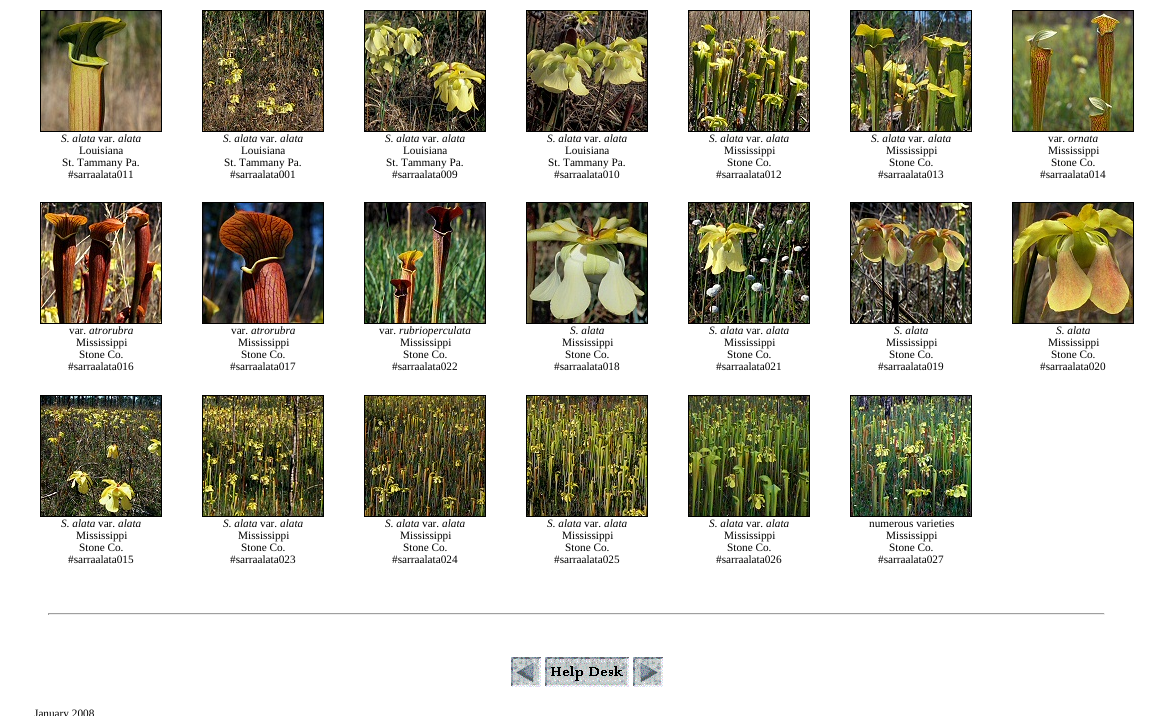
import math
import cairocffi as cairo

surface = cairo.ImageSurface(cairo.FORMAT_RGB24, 1174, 716)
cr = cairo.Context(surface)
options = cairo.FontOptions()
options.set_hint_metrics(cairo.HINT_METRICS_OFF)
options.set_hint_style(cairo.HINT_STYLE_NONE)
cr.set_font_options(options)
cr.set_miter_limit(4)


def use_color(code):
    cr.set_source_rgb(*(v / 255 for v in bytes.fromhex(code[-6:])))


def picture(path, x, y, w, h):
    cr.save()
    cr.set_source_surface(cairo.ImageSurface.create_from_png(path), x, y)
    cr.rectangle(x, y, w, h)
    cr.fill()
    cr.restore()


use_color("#ffffff")
cr.paint()
cr.rectangle(40.5, 10.5, 121, 121)
use_color("#000000")
cr.set_line_width(1)
cr.stroke()
picture("img1.png", 41, 11, 120, 120)
cr.select_font_face("Liberation Serif", cairo.FONT_SLANT_ITALIC)
cr.set_font_size(11.25)
cr.move_to(61, 142)
cr.show_text("S. alata")
cr.select_font_face("Liberation Serif")
cr.move_to(98, 142)
cr.show_text("var.")
cr.select_font_face("Liberation Serif", cairo.FONT_SLANT_ITALIC)
cr.move_to(118, 142)
cr.show_text("alata")
cr.select_font_face("Liberation Serif")
cr.move_to(79, 154)
cr.show_text("Louisiana")
cr.move_to(62, 166)
cr.show_text("St. Tammany Pa.")
cr.move_to(68, 178)
cr.show_text("#sarraalata011")
cr.rectangle(202.5, 10.5, 121, 121)
cr.stroke()
picture("img2.png", 203, 11, 120, 120)
cr.select_font_face("Liberation Serif", cairo.FONT_SLANT_ITALIC)
cr.move_to(223, 142)
cr.show_text("S. alata")
cr.select_font_face("Liberation Serif")
cr.move_to(260, 142)
cr.show_text("var.")
cr.select_font_face("Liberation Serif", cairo.FONT_SLANT_ITALIC)
cr.move_to(280, 142)
cr.show_text("alata")
cr.select_font_face("Liberation Serif")
cr.move_to(241, 154)
cr.show_text("Louisiana")
cr.move_to(224, 166)
cr.show_text("St. Tammany Pa.")
cr.move_to(230, 178)
cr.show_text("#sarraalata001")
cr.rectangle(364.5, 10.5, 121, 121)
cr.stroke()
picture("img3.png", 365, 11, 120, 120)
cr.select_font_face("Liberation Serif", cairo.FONT_SLANT_ITALIC)
cr.move_to(385, 142)
cr.show_text("S. alata")
cr.select_font_face("Liberation Serif")
cr.move_to(422, 142)
cr.show_text("var.")
cr.select_font_face("Liberation Serif", cairo.FONT_SLANT_ITALIC)
cr.move_to(442, 142)
cr.show_text("alata")
cr.select_font_face("Liberation Serif")
cr.move_to(403, 154)
cr.show_text("Louisiana")
cr.move_to(386, 166)
cr.show_text("St. Tammany Pa.")
cr.move_to(392, 178)
cr.show_text("#sarraalata009")
cr.rectangle(526.5, 10.5, 121, 121)
cr.stroke()
picture("img4.png", 527, 11, 120, 120)
cr.select_font_face("Liberation Serif", cairo.FONT_SLANT_ITALIC)
cr.move_to(547, 142)
cr.show_text("S. alata")
cr.select_font_face("Liberation Serif")
cr.move_to(584, 142)
cr.show_text("var.")
cr.select_font_face("Liberation Serif", cairo.FONT_SLANT_ITALIC)
cr.move_to(604, 142)
cr.show_text("alata")
cr.select_font_face("Liberation Serif")
cr.move_to(565, 154)
cr.show_text("Louisiana")
cr.move_to(548, 166)
cr.show_text("St. Tammany Pa.")
cr.move_to(554, 178)
cr.show_text("#sarraalata010")
cr.rectangle(688.5, 10.5, 121, 121)
cr.stroke()
picture("img5.png", 689, 11, 120, 120)
cr.select_font_face("Liberation Serif", cairo.FONT_SLANT_ITALIC)
cr.move_to(709, 142)
cr.show_text("S. alata")
cr.select_font_face("Liberation Serif")
cr.move_to(746, 142)
cr.show_text("var.")
cr.select_font_face("Liberation Serif", cairo.FONT_SLANT_ITALIC)
cr.move_to(766, 142)
cr.show_text("alata")
cr.select_font_face("Liberation Serif")
cr.move_to(724, 154)
cr.show_text("Mississippi")
cr.move_to(727, 166)
cr.show_text("Stone Co.")
cr.move_to(716, 178)
cr.show_text("#sarraalata012")
cr.rectangle(850.5, 10.5, 121, 121)
cr.stroke()
picture("img6.png", 851, 11, 120, 120)
cr.select_font_face("Liberation Serif", cairo.FONT_SLANT_ITALIC)
cr.move_to(871, 142)
cr.show_text("S. alata")
cr.select_font_face("Liberation Serif")
cr.move_to(908, 142)
cr.show_text("var.")
cr.select_font_face("Liberation Serif", cairo.FONT_SLANT_ITALIC)
cr.move_to(928, 142)
cr.show_text("alata")
cr.select_font_face("Liberation Serif")
cr.move_to(886, 154)
cr.show_text("Mississippi")
cr.move_to(889, 166)
cr.show_text("Stone Co.")
cr.move_to(878, 178)
cr.show_text("#sarraalata013")
cr.rectangle(1012.5, 10.5, 121, 121)
cr.stroke()
picture("img7.png", 1013, 11, 120, 120)
cr.move_to(1048, 142)
cr.show_text("var.")
cr.select_font_face("Liberation Serif", cairo.FONT_SLANT_ITALIC)
cr.move_to(1068, 142)
cr.show_text("ornata")
cr.select_font_face("Liberation Serif")
cr.move_to(1048, 154)
cr.show_text("Mississippi")
cr.move_to(1051, 166)
cr.show_text("Stone Co.")
cr.move_to(1040, 178)
cr.show_text("#sarraalata014")
cr.rectangle(40.5, 202.5, 121, 121)
cr.stroke()
picture("img8.png", 41, 203, 120, 120)
cr.move_to(69, 334)
cr.show_text("var.")
cr.select_font_face("Liberation Serif", cairo.FONT_SLANT_ITALIC)
cr.move_to(89, 334)
cr.show_text("atrorubra")
cr.select_font_face("Liberation Serif")
cr.move_to(76, 346)
cr.show_text("Mississippi")
cr.move_to(79, 358)
cr.show_text("Stone Co.")
cr.move_to(68, 370)
cr.show_text("#sarraalata016")
cr.rectangle(202.5, 202.5, 121, 121)
cr.stroke()
picture("img9.png", 203, 203, 120, 120)
cr.move_to(231, 334)
cr.show_text("var.")
cr.select_font_face("Liberation Serif", cairo.FONT_SLANT_ITALIC)
cr.move_to(251, 334)
cr.show_text("atrorubra")
cr.select_font_face("Liberation Serif")
cr.move_to(238, 346)
cr.show_text("Mississippi")
cr.move_to(241, 358)
cr.show_text("Stone Co.")
cr.move_to(230, 370)
cr.show_text("#sarraalata017")
cr.rectangle(364.5, 202.5, 121, 121)
cr.stroke()
picture("img10.png", 365, 203, 120, 120)
cr.move_to(379, 334)
cr.show_text("var.")
cr.select_font_face("Liberation Serif", cairo.FONT_SLANT_ITALIC)
cr.move_to(399, 334)
cr.show_text("rubrioperculata")
cr.select_font_face("Liberation Serif")
cr.move_to(400, 346)
cr.show_text("Mississippi")
cr.move_to(403, 358)
cr.show_text("Stone Co.")
cr.move_to(392, 370)
cr.show_text("#sarraalata022")
cr.rectangle(526.5, 202.5, 121, 121)
cr.stroke()
picture("img11.png", 527, 203, 120, 120)
cr.select_font_face("Liberation Serif", cairo.FONT_SLANT_ITALIC)
cr.move_to(570, 334)
cr.show_text("S. alata")
cr.select_font_face("Liberation Serif")
cr.move_to(562, 346)
cr.show_text("Mississippi")
cr.move_to(565, 358)
cr.show_text("Stone Co.")
cr.move_to(554, 370)
cr.show_text("#sarraalata018")
cr.rectangle(688.5, 202.5, 121, 121)
cr.stroke()
picture("img12.png", 689, 203, 120, 120)
cr.select_font_face("Liberation Serif", cairo.FONT_SLANT_ITALIC)
cr.move_to(709, 334)
cr.show_text("S. alata")
cr.select_font_face("Liberation Serif")
cr.move_to(746, 334)
cr.show_text("var.")
cr.select_font_face("Liberation Serif", cairo.FONT_SLANT_ITALIC)
cr.move_to(766, 334)
cr.show_text("alata")
cr.select_font_face("Liberation Serif")
cr.move_to(724, 346)
cr.show_text("Mississippi")
cr.move_to(727, 358)
cr.show_text("Stone Co.")
cr.move_to(716, 370)
cr.show_text("#sarraalata021")
cr.rectangle(850.5, 202.5, 121, 121)
cr.stroke()
picture("img13.png", 851, 203, 120, 120)
cr.select_font_face("Liberation Serif", cairo.FONT_SLANT_ITALIC)
cr.move_to(894, 334)
cr.show_text("S. alata")
cr.select_font_face("Liberation Serif")
cr.move_to(886, 346)
cr.show_text("Mississippi")
cr.move_to(889, 358)
cr.show_text("Stone Co.")
cr.move_to(878, 370)
cr.show_text("#sarraalata019")
cr.rectangle(1012.5, 202.5, 121, 121)
cr.stroke()
picture("img14.png", 1013, 203, 120, 120)
cr.select_font_face("Liberation Serif", cairo.FONT_SLANT_ITALIC)
cr.move_to(1056, 334)
cr.show_text("S. alata")
cr.select_font_face("Liberation Serif")
cr.move_to(1048, 346)
cr.show_text("Mississippi")
cr.move_to(1051, 358)
cr.show_text("Stone Co.")
cr.move_to(1040, 370)
cr.show_text("#sarraalata020")
cr.rectangle(40.5, 395.5, 121, 121)
cr.stroke()
picture("img15.png", 41, 396, 120, 120)
cr.select_font_face("Liberation Serif", cairo.FONT_SLANT_ITALIC)
cr.move_to(61, 527)
cr.show_text("S. alata")
cr.select_font_face("Liberation Serif")
cr.move_to(98, 527)
cr.show_text("var.")
cr.select_font_face("Liberation Serif", cairo.FONT_SLANT_ITALIC)
cr.move_to(118, 527)
cr.show_text("alata")
cr.select_font_face("Liberation Serif")
cr.move_to(76, 539)
cr.show_text("Mississippi")
cr.move_to(79, 551)
cr.show_text("Stone Co.")
cr.move_to(68, 563)
cr.show_text("#sarraalata015")
cr.rectangle(202.5, 395.5, 121, 121)
cr.stroke()
picture("img16.png", 203, 396, 120, 120)
cr.select_font_face("Liberation Serif", cairo.FONT_SLANT_ITALIC)
cr.move_to(223, 527)
cr.show_text("S. alata")
cr.select_font_face("Liberation Serif")
cr.move_to(260, 527)
cr.show_text("var.")
cr.select_font_face("Liberation Serif", cairo.FONT_SLANT_ITALIC)
cr.move_to(280, 527)
cr.show_text("alata")
cr.select_font_face("Liberation Serif")
cr.move_to(238, 539)
cr.show_text("Mississippi")
cr.move_to(241, 551)
cr.show_text("Stone Co.")
cr.move_to(230, 563)
cr.show_text("#sarraalata023")
cr.rectangle(364.5, 395.5, 121, 121)
cr.stroke()
picture("img17.png", 365, 396, 120, 120)
cr.select_font_face("Liberation Serif", cairo.FONT_SLANT_ITALIC)
cr.move_to(385, 527)
cr.show_text("S. alata")
cr.select_font_face("Liberation Serif")
cr.move_to(422, 527)
cr.show_text("var.")
cr.select_font_face("Liberation Serif", cairo.FONT_SLANT_ITALIC)
cr.move_to(442, 527)
cr.show_text("alata")
cr.select_font_face("Liberation Serif")
cr.move_to(400, 539)
cr.show_text("Mississippi")
cr.move_to(403, 551)
cr.show_text("Stone Co.")
cr.move_to(392, 563)
cr.show_text("#sarraalata024")
cr.rectangle(526.5, 395.5, 121, 121)
cr.stroke()
picture("img18.png", 527, 396, 120, 120)
cr.select_font_face("Liberation Serif", cairo.FONT_SLANT_ITALIC)
cr.move_to(547, 527)
cr.show_text("S. alata")
cr.select_font_face("Liberation Serif")
cr.move_to(584, 527)
cr.show_text("var.")
cr.select_font_face("Liberation Serif", cairo.FONT_SLANT_ITALIC)
cr.move_to(604, 527)
cr.show_text("alata")
cr.select_font_face("Liberation Serif")
cr.move_to(562, 539)
cr.show_text("Mississippi")
cr.move_to(565, 551)
cr.show_text("Stone Co.")
cr.move_to(554, 563)
cr.show_text("#sarraalata025")
cr.rectangle(688.5, 395.5, 121, 121)
cr.stroke()
picture("img19.png", 689, 396, 120, 120)
cr.select_font_face("Liberation Serif", cairo.FONT_SLANT_ITALIC)
cr.move_to(709, 527)
cr.show_text("S. alata")
cr.select_font_face("Liberation Serif")
cr.move_to(746, 527)
cr.show_text("var.")
cr.select_font_face("Liberation Serif", cairo.FONT_SLANT_ITALIC)
cr.move_to(766, 527)
cr.show_text("alata")
cr.select_font_face("Liberation Serif")
cr.move_to(724, 539)
cr.show_text("Mississippi")
cr.move_to(727, 551)
cr.show_text("Stone Co.")
cr.move_to(716, 563)
cr.show_text("#sarraalata026")
cr.rectangle(850.5, 395.5, 121, 121)
cr.stroke()
picture("img20.png", 851, 396, 120, 120)
cr.move_to(869, 527)
cr.show_text("numerous varieties")
cr.move_to(886, 539)
cr.show_text("Mississippi")
cr.move_to(889, 551)
cr.show_text("Stone Co.")
cr.move_to(878, 563)
cr.show_text("#sarraalata027")
use_color("#9f9f9f")
cr.rectangle(48, 613, 1057, 1)
cr.fill()
use_color("#eeeeee")
cr.rectangle(1104, 613, 1, 2)
cr.fill()
cr.rectangle(48, 614, 1057, 1)
cr.fill()
use_color("#9f9f9f")
cr.rectangle(48, 613, 1, 2)
cr.fill()
picture("img21.png", 511, 657, 30, 30)
picture("img22.png", 545, 657, 84, 30)
picture("img23.png", 633, 657, 30, 30)
use_color("#000000")
cr.move_to(34, 717)
cr.show_text("January 2008")
surface.write_to_png("result.png")
